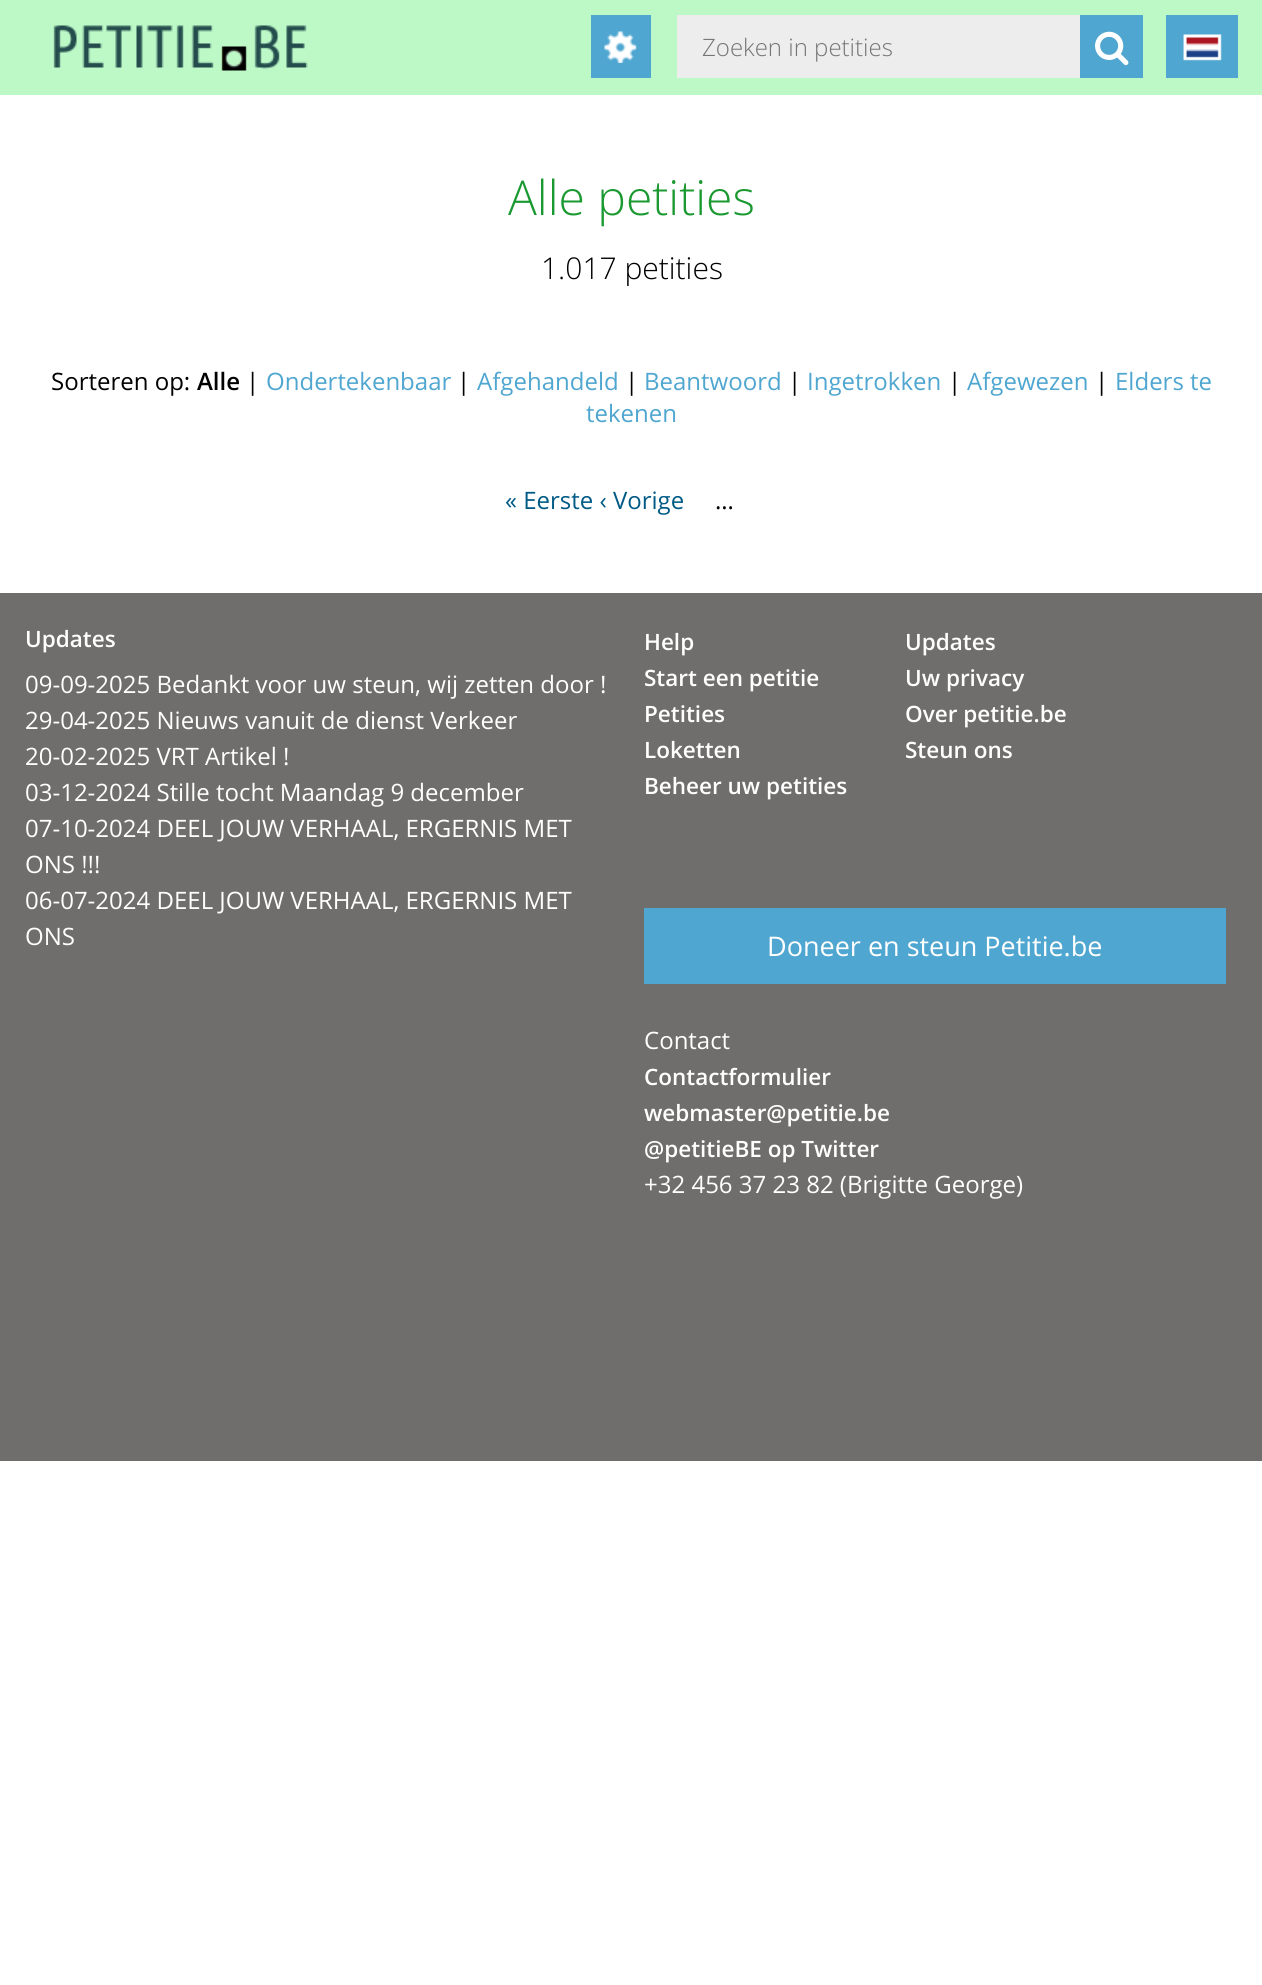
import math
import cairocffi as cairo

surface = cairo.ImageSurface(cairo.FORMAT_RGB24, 1262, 1985)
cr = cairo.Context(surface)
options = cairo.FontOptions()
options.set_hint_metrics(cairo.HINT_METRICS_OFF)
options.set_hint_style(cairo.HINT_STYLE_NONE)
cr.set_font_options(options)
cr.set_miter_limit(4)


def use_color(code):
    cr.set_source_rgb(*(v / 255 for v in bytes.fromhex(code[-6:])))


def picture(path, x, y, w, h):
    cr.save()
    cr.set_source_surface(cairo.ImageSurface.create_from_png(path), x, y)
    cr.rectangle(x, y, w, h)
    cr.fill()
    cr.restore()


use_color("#ffffff")
cr.paint()
use_color("#bcf9c7")
cr.rectangle(0, 0, 1262, 95)
cr.fill()
picture("img1.png", 53, 25, 255, 46)
use_color("#4fa6d0")
cr.rectangle(591, 15, 60, 63)
cr.fill()
picture("img2.png", 604, 31, 33, 32)
use_color("#ecedec")
cr.rectangle(677, 15, 403, 63)
cr.fill()
cr.select_font_face("Open Sans Light")
cr.set_font_size(24)
use_color("#757575")
cr.move_to(702, 56)
cr.show_text("Zoeken in petities")
use_color("#4fa6d0")
cr.rectangle(1080, 15, 63, 63)
cr.fill()
picture("img3.png", 1095, 31, 34, 35)
cr.rectangle(1166, 15, 72, 63)
cr.fill()
picture("img4.png", 1183, 34, 39, 27)
cr.set_font_size(48)
use_color("#1a9931")
cr.move_to(508, 215)
cr.show_text("Alle petities")
cr.set_font_size(30)
use_color("#000000")
cr.move_to(541, 279)
cr.show_text("1.017 petities")
cr.select_font_face("Open Sans")
cr.set_font_size(24)
cr.move_to(51, 390)
cr.show_text("Sorteren op:")
cr.select_font_face("Open Sans SemiBold")
cr.move_to(197, 390)
cr.show_text("Alle")
cr.select_font_face("Open Sans")
cr.move_to(246, 390)
cr.show_text("|")
use_color("#4fa6d0")
cr.move_to(266, 390)
cr.show_text("Ondertekenbaar")
use_color("#000000")
cr.move_to(457, 390)
cr.show_text("|")
use_color("#4fa6d0")
cr.move_to(477, 390)
cr.show_text("Afgehandeld")
use_color("#000000")
cr.move_to(625, 390)
cr.show_text("|")
use_color("#4fa6d0")
cr.move_to(644, 390)
cr.show_text("Beantwoord")
use_color("#000000")
cr.move_to(788, 390)
cr.show_text("|")
use_color("#4fa6d0")
cr.move_to(807, 390)
cr.show_text("Ingetrokken")
use_color("#000000")
cr.move_to(948, 390)
cr.show_text("|")
use_color("#4fa6d0")
cr.move_to(967, 390)
cr.show_text("Afgewezen")
use_color("#000000")
cr.move_to(1095, 390)
cr.show_text("|")
use_color("#4fa6d0")
cr.move_to(1115, 390)
cr.show_text("Elders te")
cr.move_to(586, 422)
cr.show_text("tekenen")
use_color("#005a85")
cr.move_to(505, 509)
cr.show_text("« Eerste ‹ Vorige")
use_color("#000000")
cr.move_to(715, 509)
cr.show_text("…")
use_color("#6f6e6d")
cr.rectangle(0, 593, 1262, 868)
cr.fill()
cr.select_font_face("Open Sans SemiBold")
cr.set_font_size(22.5)
use_color("#ffffff")
cr.move_to(25, 647)
cr.show_text("Updates")
cr.select_font_face("Open Sans")
cr.set_font_size(24)
cr.move_to(25, 693)
cr.show_text("09-09-2025 Bedankt voor uw steun, wij zetten door !")
cr.move_to(25, 729)
cr.show_text("29-04-2025 Nieuws vanuit de dienst Verkeer")
cr.move_to(25, 765)
cr.show_text("20-02-2025 VRT Artikel !")
cr.move_to(25, 801)
cr.show_text("03-12-2024 Stille tocht Maandag 9 december")
cr.move_to(25, 837)
cr.show_text("07-10-2024 DEEL JOUW VERHAAL, ERGERNIS MET")
cr.move_to(25, 873)
cr.show_text("ONS !!!")
cr.move_to(25, 909)
cr.show_text("06-07-2024 DEEL JOUW VERHAAL, ERGERNIS MET")
cr.move_to(25, 945)
cr.show_text("ONS")
cr.select_font_face("Open Sans SemiBold")
cr.set_font_size(22.5)
cr.move_to(644, 650)
cr.show_text("Help")
cr.move_to(644, 686)
cr.show_text("Start een petitie")
cr.move_to(644, 722)
cr.show_text("Petities")
cr.move_to(644, 758)
cr.show_text("Loketten")
cr.move_to(644, 794)
cr.show_text("Beheer uw petities")
cr.move_to(905, 650)
cr.show_text("Updates")
cr.move_to(905, 686)
cr.show_text("Uw privacy")
cr.move_to(905, 722)
cr.show_text("Over petitie.be")
cr.move_to(905, 758)
cr.show_text("Steun ons")
use_color("#4fa6d0")
cr.rectangle(644, 908, 582, 76)
cr.fill()
cr.select_font_face("Open Sans")
cr.set_font_size(27)
use_color("#ffffff")
cr.move_to(767, 956)
cr.show_text("Doneer en steun Petitie.be")
cr.set_font_size(24)
cr.move_to(644, 1049)
cr.show_text("Contact")
cr.select_font_face("Open Sans SemiBold")
cr.set_font_size(22.5)
cr.move_to(644, 1085)
cr.show_text("Contactformulier")
cr.move_to(644, 1121)
cr.show_text("webmaster@petitie.be")
cr.move_to(644, 1157)
cr.show_text("@petitieBE op Twitter")
cr.select_font_face("Open Sans")
cr.set_font_size(24)
cr.move_to(644, 1193)
cr.show_text("+32 456 37 23 82 (Brigitte George)")
surface.write_to_png("result.png")
